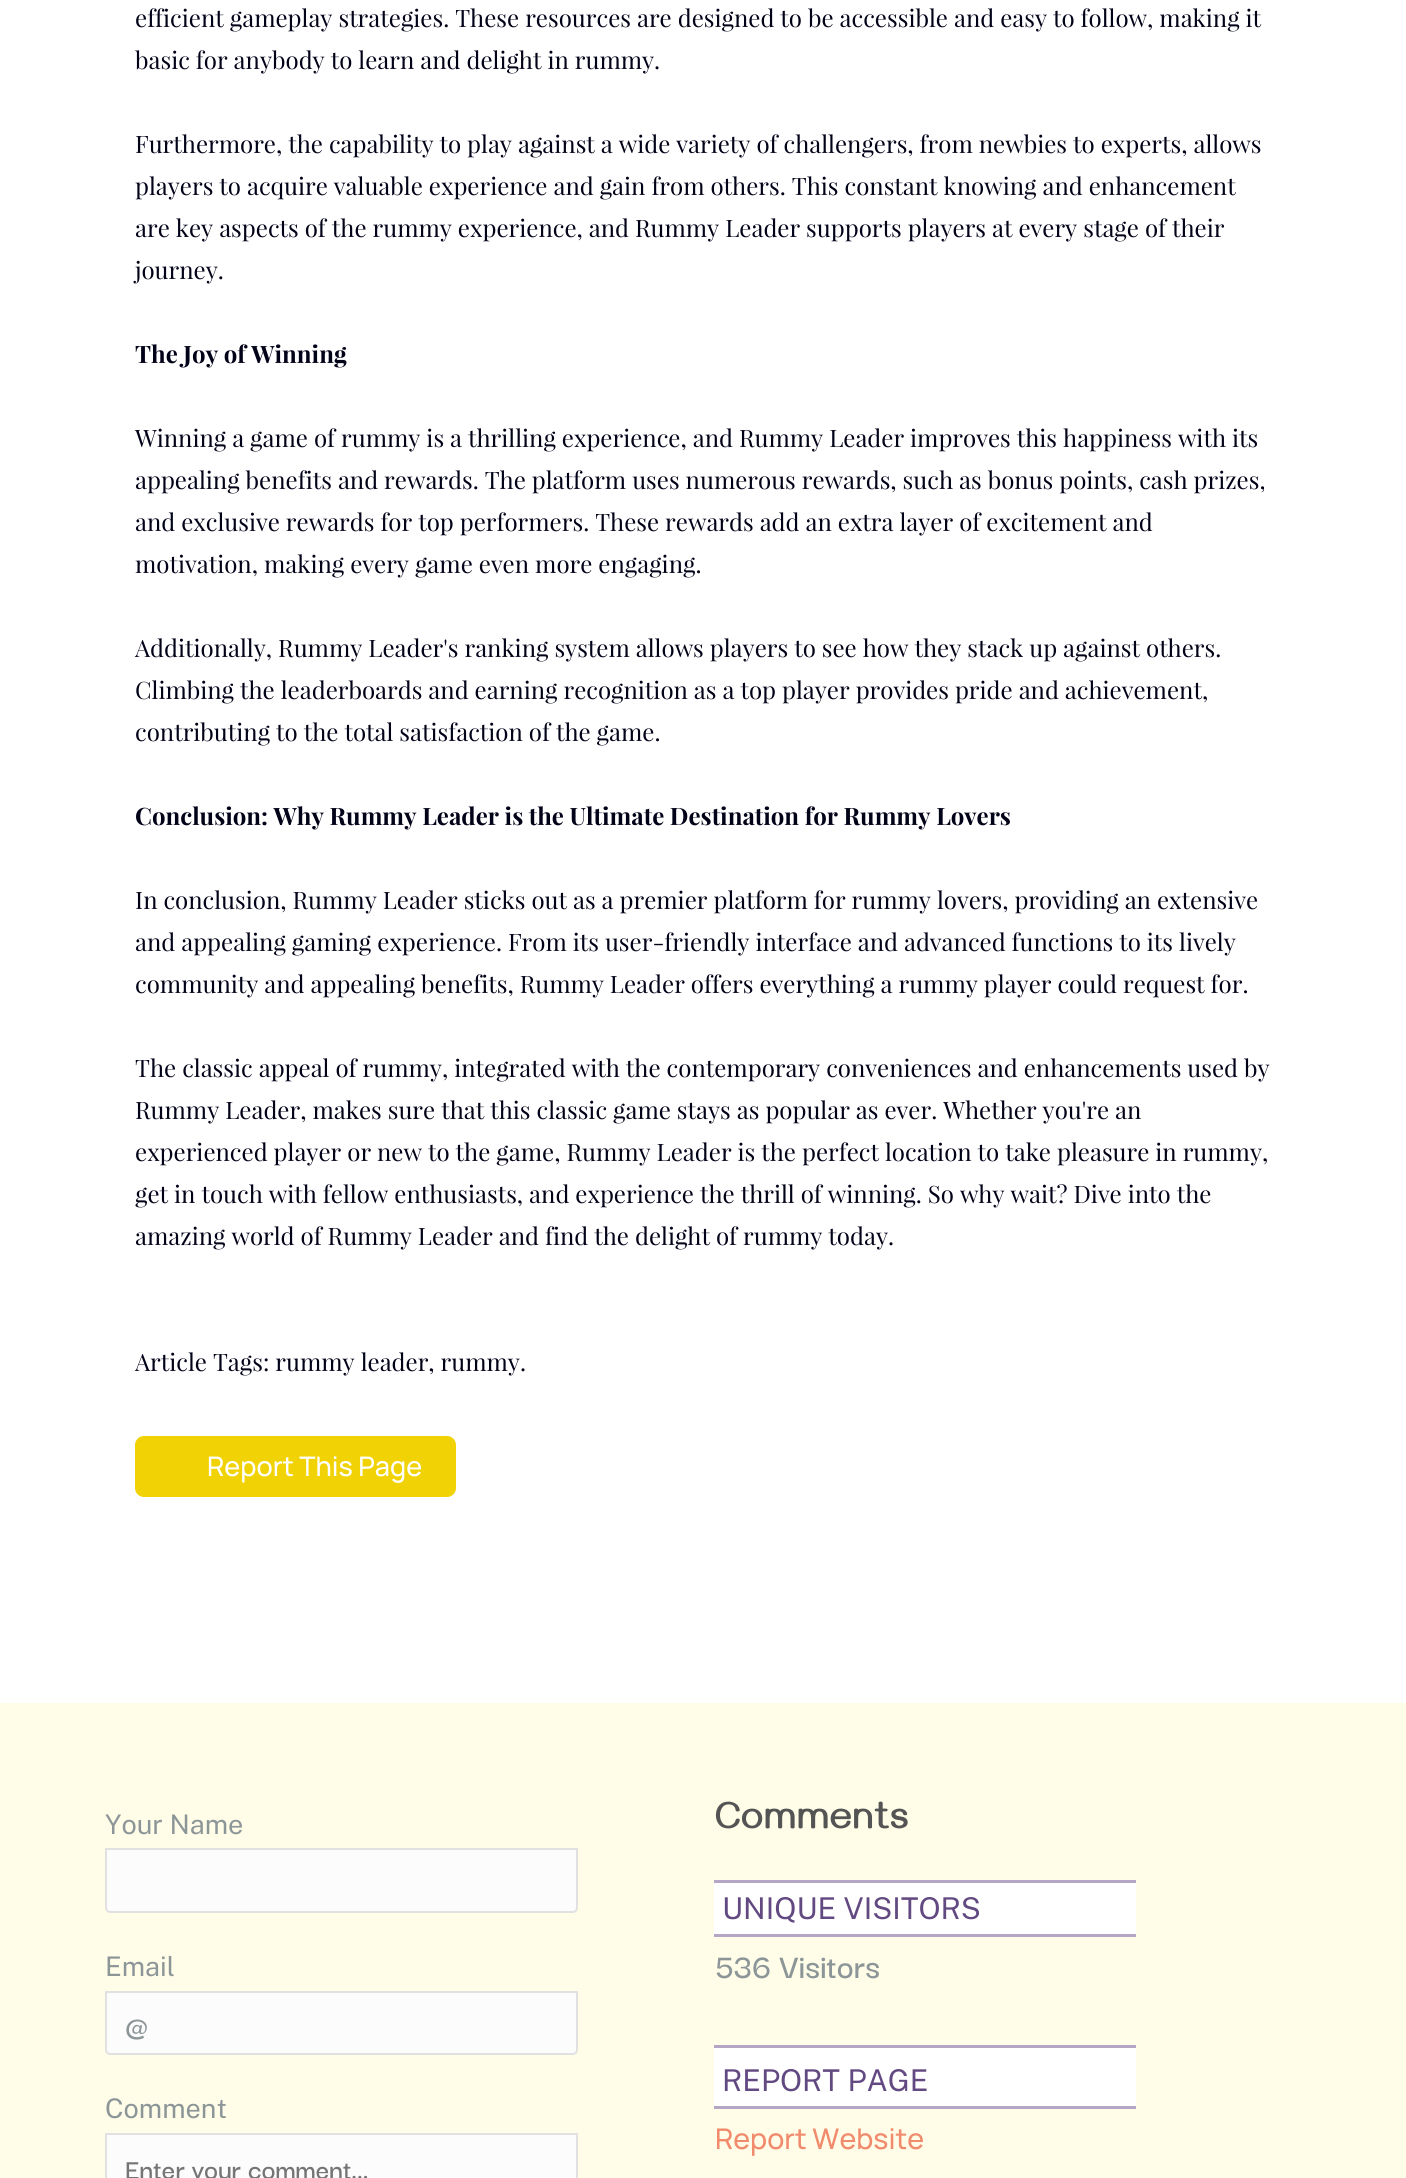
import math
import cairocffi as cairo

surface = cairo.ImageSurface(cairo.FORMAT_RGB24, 1406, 2178)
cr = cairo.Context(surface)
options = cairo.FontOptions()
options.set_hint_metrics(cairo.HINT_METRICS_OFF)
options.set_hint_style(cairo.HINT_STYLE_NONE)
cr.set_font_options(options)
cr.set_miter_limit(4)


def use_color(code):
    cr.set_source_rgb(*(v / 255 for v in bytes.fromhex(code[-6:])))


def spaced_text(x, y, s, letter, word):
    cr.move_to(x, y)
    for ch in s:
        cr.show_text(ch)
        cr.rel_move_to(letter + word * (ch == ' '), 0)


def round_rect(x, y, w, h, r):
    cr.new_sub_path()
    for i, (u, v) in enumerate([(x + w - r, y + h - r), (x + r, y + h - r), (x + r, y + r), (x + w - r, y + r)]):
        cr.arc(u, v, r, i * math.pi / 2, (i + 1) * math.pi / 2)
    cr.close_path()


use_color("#ffffff")
cr.paint()
cr.select_font_face("Playfair Display")
cr.set_font_size(24)
use_color("#010118")
cr.move_to(135, 27)
cr.show_text("efficient gameplay strategies. These resources are designed to be accessible and easy to follow, making it")
cr.move_to(135, 69)
cr.show_text("basic for anybody to learn and delight in rummy.")
cr.move_to(135, 153)
cr.show_text("Furthermore, the capability to play against a wide variety of challengers, from newbies to experts, allows")
cr.move_to(135, 195)
cr.show_text("players to acquire valuable experience and gain from others. This constant knowing and enhancement")
cr.move_to(135, 237)
cr.show_text("are key aspects of the rummy experience, and Rummy Leader supports players at every stage of their")
cr.move_to(135, 279)
cr.show_text("journey.")
cr.select_font_face("Playfair Display", cairo.FONT_SLANT_NORMAL, cairo.FONT_WEIGHT_BOLD)
cr.move_to(135, 363)
cr.show_text("The Joy of Winning")
cr.select_font_face("Playfair Display")
cr.move_to(135, 447)
cr.show_text("Winning a game of rummy is a thrilling experience, and Rummy Leader improves this happiness with its")
cr.move_to(135, 489)
cr.show_text("appealing benefits and rewards. The platform uses numerous rewards, such as bonus points, cash prizes,")
cr.move_to(135, 531)
cr.show_text("and exclusive rewards for top performers. These rewards add an extra layer of excitement and")
cr.move_to(135, 573)
cr.show_text("motivation, making every game even more engaging.")
cr.move_to(135, 657)
cr.show_text("Additionally, Rummy Leader's ranking system allows players to see how they stack up against others.")
cr.move_to(135, 699)
cr.show_text("Climbing the leaderboards and earning recognition as a top player provides pride and achievement,")
cr.move_to(135, 741)
cr.show_text("contributing to the total satisfaction of the game.")
cr.select_font_face("Playfair Display", cairo.FONT_SLANT_NORMAL, cairo.FONT_WEIGHT_BOLD)
cr.move_to(135, 825)
cr.show_text("Conclusion: Why Rummy Leader is the Ultimate Destination for Rummy Lovers")
cr.select_font_face("Playfair Display")
cr.move_to(135, 909)
cr.show_text("In conclusion, Rummy Leader sticks out as a premier platform for rummy lovers, providing an extensive")
cr.move_to(135, 951)
cr.show_text("and appealing gaming experience. From its user-friendly interface and advanced functions to its lively")
cr.move_to(135, 993)
cr.show_text("community and appealing benefits, Rummy Leader offers everything a rummy player could request for.")
cr.move_to(135, 1077)
cr.show_text("The classic appeal of rummy, integrated with the contemporary conveniences and enhancements used by")
cr.move_to(135, 1119)
cr.show_text("Rummy Leader, makes sure that this classic game stays as popular as ever. Whether you're an")
cr.move_to(135, 1161)
cr.show_text("experienced player or new to the game, Rummy Leader is the perfect location to take pleasure in rummy,")
cr.move_to(135, 1203)
cr.show_text("get in touch with fellow enthusiasts, and experience the thrill of winning. So why wait? Dive into the")
cr.move_to(135, 1245)
cr.show_text("amazing world of Rummy Leader and find the delight of rummy today.")
cr.move_to(135, 1371)
cr.show_text("Article Tags: rummy leader, rummy.")
use_color("#f1d204")
round_rect(136, 1437, 319, 59, 8)
cr.fill_preserve()
cr.stroke()
cr.select_font_face("Manrope ExtraLight")
cr.set_font_size(27)
use_color("#ffffff")
cr.move_to(207, 1476)
cr.show_text("Report This Page")
use_color("#fffce7")
cr.rectangle(0, 1703, 1406, 475)
cr.fill()
cr.select_font_face("Public Sans Thin")
use_color("#8c9597")
cr.move_to(105, 1834)
cr.show_text("Your Name")
use_color("#fcfcfc")
cr.new_path()
cr.move_to(106, 1849)
cr.line_to(577, 1849)
cr.line_to(577, 1908)
cr.curve_to(577, 1910, 575, 1912, 573, 1912)
cr.line_to(110, 1912)
cr.curve_to(108, 1912, 106, 1910, 106, 1908)
cr.close_path()
cr.fill_preserve()
use_color("#e1e1e1")
cr.stroke()
use_color("#8c9597")
cr.move_to(105, 1976)
cr.show_text("Email")
use_color("#fcfcfc")
cr.new_path()
cr.move_to(106, 1992)
cr.line_to(577, 1992)
cr.line_to(577, 2050)
cr.curve_to(577, 2052, 575, 2054, 573, 2054)
cr.line_to(110, 2054)
cr.curve_to(108, 2054, 106, 2052, 106, 2050)
cr.close_path()
cr.fill_preserve()
use_color("#e1e1e1")
cr.stroke()
cr.select_font_face("Darker Grotesque SemiBold")
cr.set_font_size(29.75)
use_color("#8c9597")
cr.move_to(125, 2035)
cr.show_text("@")
cr.select_font_face("Public Sans Thin")
cr.set_font_size(27)
cr.move_to(105, 2118)
cr.show_text("Comment")
use_color("#fcfcfc")
cr.rectangle(106, 2134, 471, 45)
cr.fill_preserve()
use_color("#e1e1e1")
cr.stroke()
cr.select_font_face("Darker Grotesque SemiBold")
cr.set_font_size(29.75)
use_color("#757575")
cr.move_to(125, 2179)
cr.show_text("Enter your comment...")
cr.select_font_face("Gayathri", cairo.FONT_SLANT_NORMAL, cairo.FONT_WEIGHT_BOLD)
cr.set_font_size(37.5)
use_color("#545454")
spaced_text(715, 1828, "Comments", 1.5, 0)
use_color("#ffffff")
cr.rectangle(714, 1883, 422, 51)
cr.fill()
use_color("#b5a6c5")
cr.rectangle(714, 1880, 422, 3)
cr.fill()
cr.rectangle(714, 1934, 422, 3)
cr.fill()
cr.select_font_face("Public Sans Thin")
cr.set_font_size(30)
use_color("#624981")
cr.move_to(722, 1919)
cr.show_text("UNIQUE VISITORS")
cr.select_font_face("Darker Grotesque SemiBold")
cr.set_font_size(36)
use_color("#8c9597")
cr.move_to(715, 1978)
cr.show_text("536 Visitors")
use_color("#ffffff")
cr.rectangle(714, 2048, 422, 58)
cr.fill()
use_color("#b5a6c5")
cr.rectangle(714, 2045, 422, 3)
cr.fill()
cr.rectangle(714, 2106, 422, 3)
cr.fill()
cr.select_font_face("Public Sans Thin")
cr.set_font_size(30)
use_color("#624981")
cr.move_to(722, 2091)
cr.show_text("REPORT PAGE")
cr.select_font_face("Manrope ExtraLight")
cr.set_font_size(28.5)
use_color("#f18b6d")
cr.move_to(715, 2149)
cr.show_text("Report Website")
surface.write_to_png("result.png")
